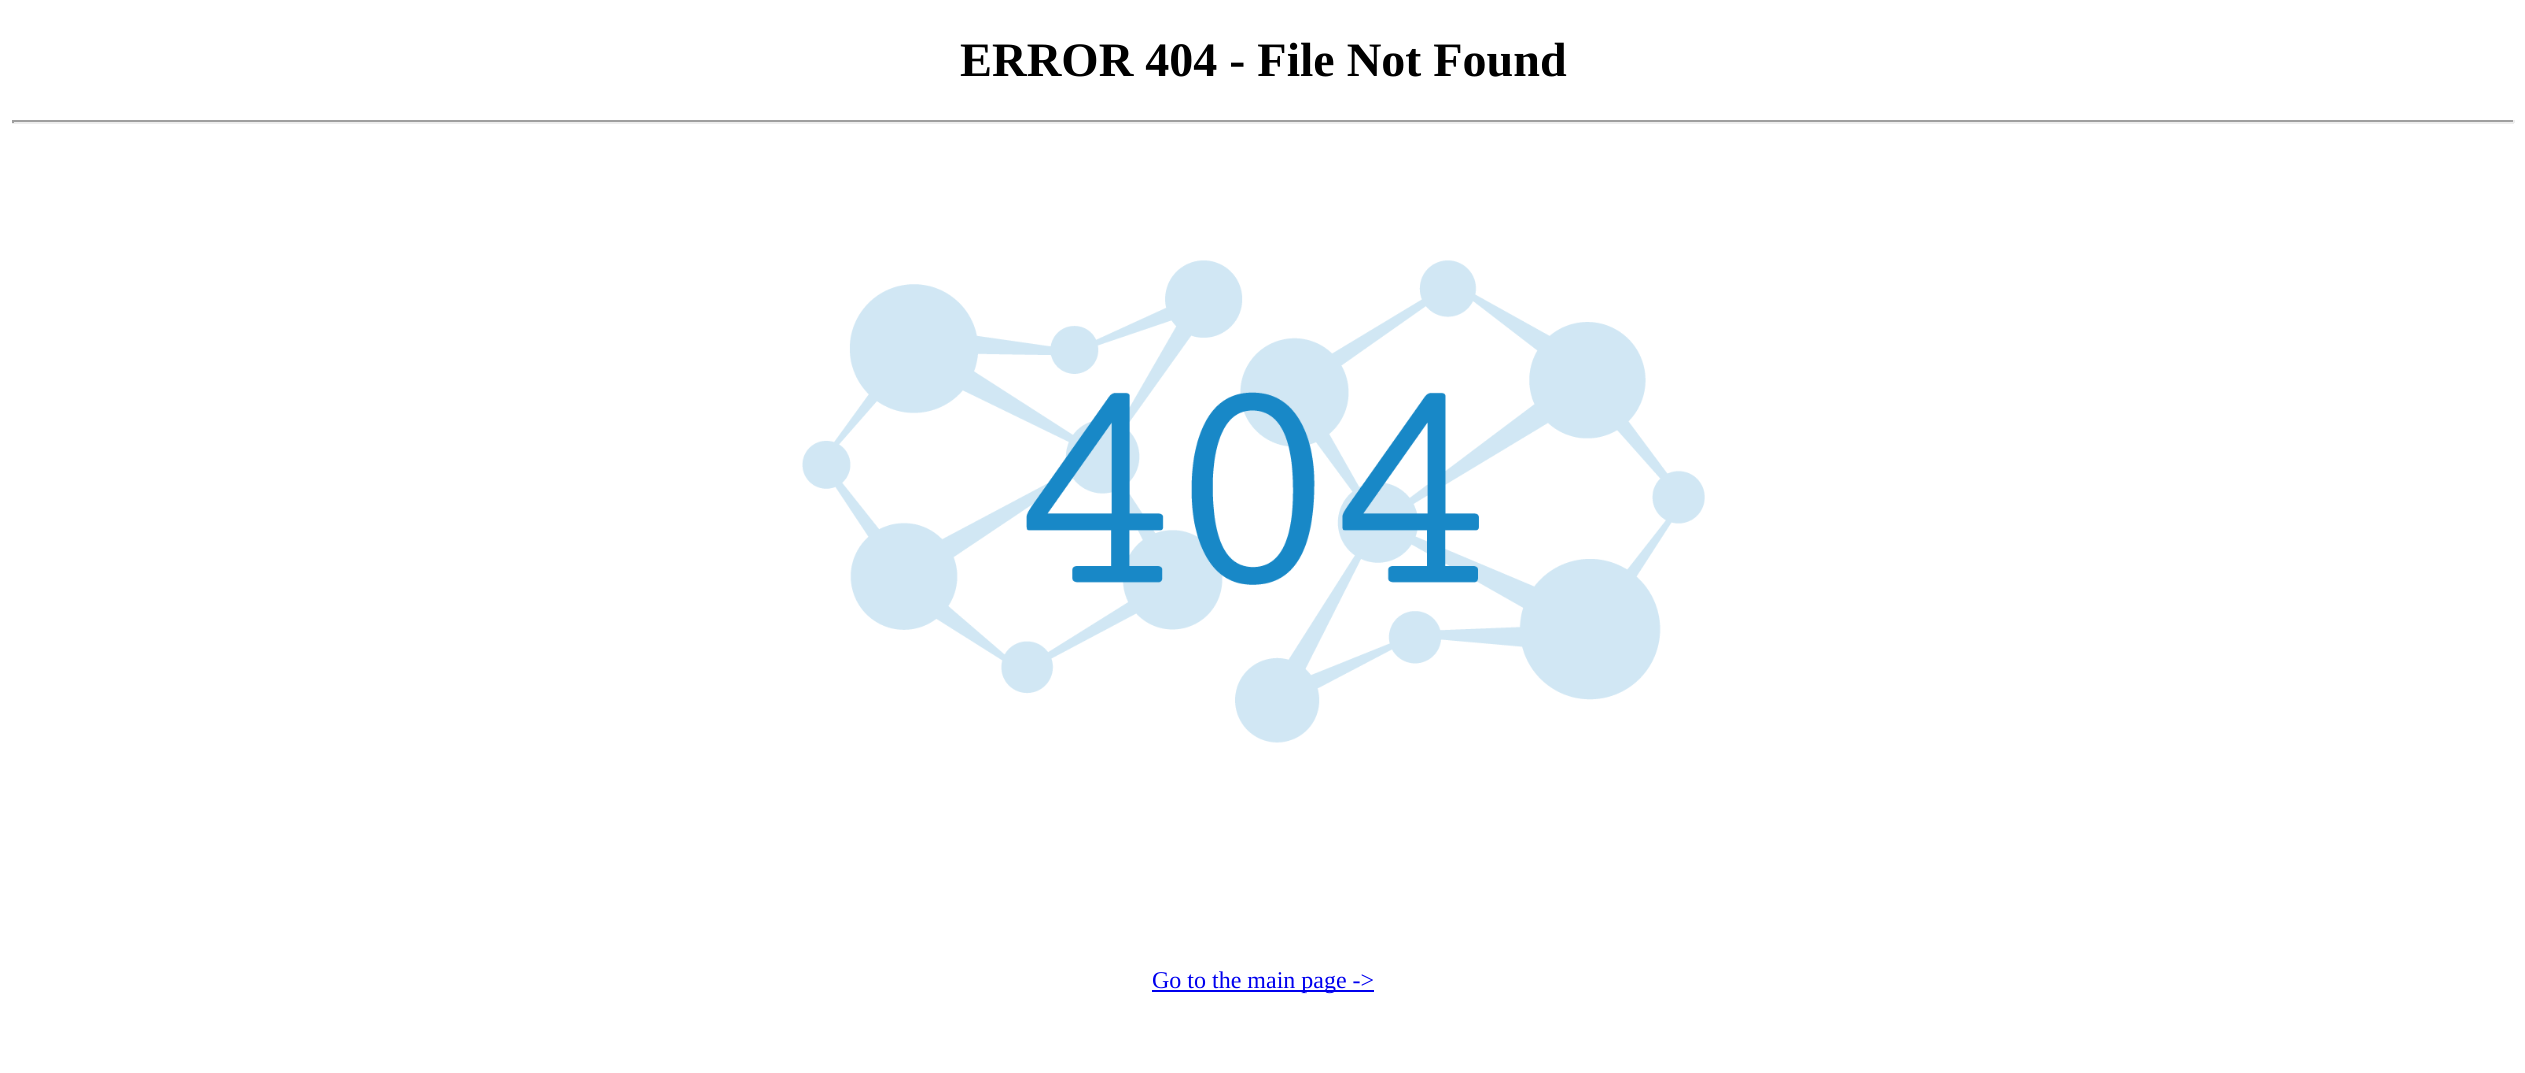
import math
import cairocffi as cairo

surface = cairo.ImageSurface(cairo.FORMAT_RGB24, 2525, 1073)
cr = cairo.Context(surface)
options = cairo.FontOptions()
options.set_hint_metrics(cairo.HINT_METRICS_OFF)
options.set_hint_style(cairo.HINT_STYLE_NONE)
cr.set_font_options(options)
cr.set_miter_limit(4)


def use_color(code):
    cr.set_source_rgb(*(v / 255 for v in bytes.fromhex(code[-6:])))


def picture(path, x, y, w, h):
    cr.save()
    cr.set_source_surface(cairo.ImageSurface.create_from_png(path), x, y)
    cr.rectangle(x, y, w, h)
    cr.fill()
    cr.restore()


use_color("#ffffff")
cr.paint()
cr.select_font_face("Liberation Serif", cairo.FONT_SLANT_NORMAL, cairo.FONT_WEIGHT_BOLD)
cr.set_font_size(48)
use_color("#000000")
cr.move_to(960, 76)
cr.show_text("ERROR 404 - File Not Found")
use_color("#9f9f9f")
cr.rectangle(12, 120, 2502, 2)
cr.fill()
use_color("#eeeeee")
cr.rectangle(2513, 120, 2, 3)
cr.fill()
cr.rectangle(12, 122, 2502, 2)
cr.fill()
use_color("#9f9f9f")
cr.rectangle(12, 120, 2, 3)
cr.fill()
picture("img1.png", 802, 260, 903, 483)
use_color("#0000ee")
cr.rectangle(1152, 990, 222, 2)
cr.fill()
cr.select_font_face("Liberation Serif")
cr.set_font_size(24)
cr.move_to(1152, 988)
cr.show_text("Go to the main page ->")
surface.write_to_png("result.png")
